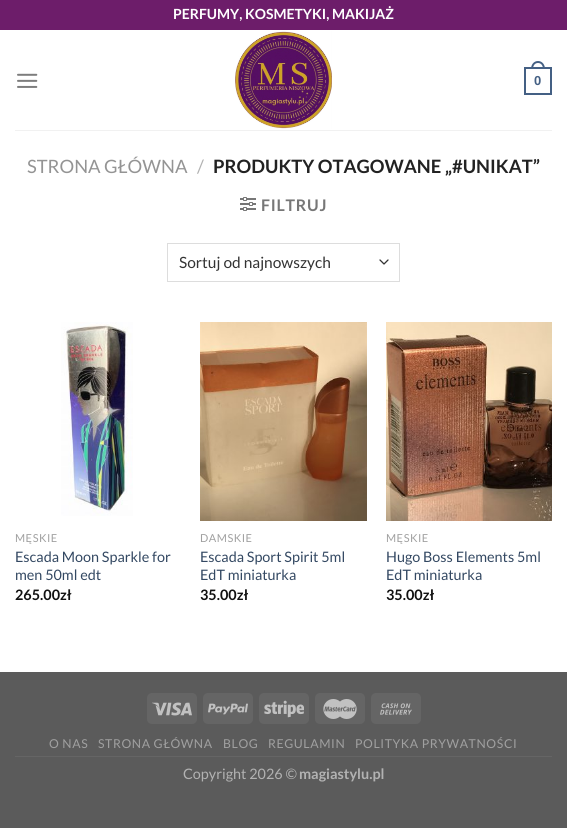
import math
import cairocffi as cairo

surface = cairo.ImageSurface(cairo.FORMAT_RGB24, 567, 828)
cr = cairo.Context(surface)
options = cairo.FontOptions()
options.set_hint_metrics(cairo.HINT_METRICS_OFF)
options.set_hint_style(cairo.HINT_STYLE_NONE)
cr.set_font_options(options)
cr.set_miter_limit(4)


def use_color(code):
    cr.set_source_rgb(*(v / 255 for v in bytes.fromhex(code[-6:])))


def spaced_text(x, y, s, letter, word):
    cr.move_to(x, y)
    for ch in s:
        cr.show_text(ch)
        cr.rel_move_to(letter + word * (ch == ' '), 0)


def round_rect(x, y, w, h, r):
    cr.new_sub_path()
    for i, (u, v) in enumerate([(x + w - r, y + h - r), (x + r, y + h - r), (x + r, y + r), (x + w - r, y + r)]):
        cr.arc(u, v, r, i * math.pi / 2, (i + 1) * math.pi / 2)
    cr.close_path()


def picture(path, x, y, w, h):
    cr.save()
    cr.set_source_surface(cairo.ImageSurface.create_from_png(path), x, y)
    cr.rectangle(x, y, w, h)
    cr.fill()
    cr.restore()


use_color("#5b5b5b")
cr.paint()
use_color("#ffffff")
cr.rectangle(0, 30, 567, 642)
cr.fill()
use_color("#6d1d6a")
cr.rectangle(0, 0, 567, 30)
cr.fill()
cr.select_font_face("Lato", cairo.FONT_SLANT_NORMAL, cairo.FONT_WEIGHT_BOLD)
cr.set_font_size(14)
use_color("#ffffff")
cr.move_to(173, 19)
cr.show_text("PERFUMY, KOSMETYKI, MAKIJAŻ")
picture("img1.png", 17, 73, 21, 15)
picture("img2.png", 235, 31, 97, 98)
cr.rectangle(525, 68, 26, 26)
use_color("#446084")
cr.stroke()
cr.set_fill_rule(cairo.FILL_RULE_EVEN_ODD)
cr.new_path()
cr.move_to(538, 61)
cr.curve_to(542.5, 61, 545, 65, 545, 69)
cr.line_to(531, 69)
cr.curve_to(531, 65, 533.5, 61, 538, 61)
cr.close_path()
cr.move_to(538, 63)
cr.curve_to(541.5, 63, 543, 66, 543, 69)
cr.line_to(533, 69)
cr.curve_to(533, 66, 534.5, 63, 538, 63)
cr.close_path()
cr.fill()
cr.select_font_face("Liberation Sans", cairo.FONT_SLANT_NORMAL, cairo.FONT_WEIGHT_BOLD)
cr.set_font_size(13)
cr.move_to(534, 85)
cr.show_text("0")
use_color("#f1f1f1")
cr.rectangle(15, 130, 537, 1)
cr.fill()
cr.select_font_face("Lato")
cr.set_font_size(18.4)
use_color("#949494")
cr.move_to(27, 173)
cr.show_text("STRONA GŁÓWNA")
use_color("#b2b2b2")
cr.move_to(197, 173)
cr.show_text("/")
cr.select_font_face("Lato", cairo.FONT_SLANT_NORMAL, cairo.FONT_WEIGHT_BOLD)
use_color("#222222")
cr.move_to(213, 173)
cr.show_text("PRODUKTY OTAGOWANE „#UNIKAT”")
picture("img3.png", 240, 197, 16, 14)
cr.set_font_size(16)
use_color("#777777")
spaced_text(261, 211, "FILTRUJ", 0.75, 0)
cr.new_path()
cr.move_to(380, 260)
cr.line_to(384, 264)
cr.line_to(388, 260)
use_color("#333333")
cr.set_line_width(1.3)
cr.set_line_cap(cairo.LINE_CAP_ROUND)
cr.set_line_join(cairo.LINE_JOIN_ROUND)
cr.stroke()
cr.rectangle(167.5, 243.5, 232, 38)
use_color("#dddddd")
cr.set_line_width(1)
cr.set_line_cap(cairo.LINE_CAP_BUTT)
cr.set_line_join(cairo.LINE_JOIN_MITER)
cr.stroke()
cr.select_font_face("Lato")
cr.set_font_size(15.5)
use_color("#333333")
cr.move_to(179, 268)
cr.show_text("Sortuj od najnowszych")
picture("img4.png", 61, 322, 72, 194)
cr.set_font_size(11)
use_color("#a0a0a0")
spaced_text(15, 542, "MĘSKIE", 0.5, 0)
cr.set_font_size(14.4)
use_color("#334862")
cr.move_to(15, 562)
cr.show_text("Escada Moon Sparkle for")
cr.move_to(15, 580)
cr.show_text("men 50ml edt")
cr.select_font_face("Lato", cairo.FONT_SLANT_NORMAL, cairo.FONT_WEIGHT_BOLD)
use_color("#111111")
cr.move_to(15, 600)
cr.show_text("265.00zł")
picture("img5.png", 200, 322, 167, 199)
cr.select_font_face("Lato")
cr.set_font_size(11)
use_color("#a0a0a0")
spaced_text(200, 542, "DAMSKIE", 0.5, 0)
cr.set_font_size(14.4)
use_color("#334862")
cr.move_to(200, 562)
cr.show_text("Escada Sport Spirit 5ml")
cr.move_to(200, 580)
cr.show_text("EdT miniaturka")
cr.select_font_face("Lato", cairo.FONT_SLANT_NORMAL, cairo.FONT_WEIGHT_BOLD)
use_color("#111111")
cr.move_to(200, 600)
cr.show_text("35.00zł")
picture("img6.png", 386, 322, 166, 199)
cr.select_font_face("Lato")
cr.set_font_size(11)
use_color("#a0a0a0")
spaced_text(386, 542, "MĘSKIE", 0.5, 0)
cr.set_font_size(14.4)
use_color("#334862")
cr.move_to(386, 562)
cr.show_text("Hugo Boss Elements 5ml")
cr.move_to(386, 580)
cr.show_text("EdT miniaturka")
cr.select_font_face("Lato", cairo.FONT_SLANT_NORMAL, cairo.FONT_WEIGHT_BOLD)
use_color("#111111")
cr.move_to(386, 600)
cr.show_text("35.00zł")
use_color("#656565")
round_rect(147, 693, 50, 31, 5)
cr.fill()
picture("img7.png", 152, 702, 40, 14)
round_rect(203, 693, 50, 31, 5)
cr.fill()
picture("img8.png", 208, 703, 40, 12)
round_rect(259, 693, 50, 31, 5)
cr.fill()
picture("img9.png", 264, 700, 40, 18)
round_rect(315, 693, 50, 31, 5)
cr.fill()
picture("img10.png", 323, 699, 34, 20)
round_rect(371, 693, 50, 31, 5)
cr.fill()
picture("img11.png", 380, 703, 32, 12)
cr.rectangle(15, 756, 537, 1)
cr.fill()
cr.select_font_face("Lato")
cr.set_font_size(12.25)
use_color("#a0a0a0")
spaced_text(49, 748, "O NAS", 0.6, 0)
spaced_text(98, 748, "STRONA GŁÓWNA", 0.6, 0)
spaced_text(223, 748, "BLOG", 0.6, 0)
spaced_text(268, 748, "REGULAMIN", 0.6, 0)
spaced_text(355, 748, "POLITYKA PRYWATNOŚCI", 0.6, 0)
cr.set_font_size(14.4)
use_color("#b2b2b2")
cr.move_to(183, 779)
cr.show_text("Copyright 2026 ©")
cr.select_font_face("Lato", cairo.FONT_SLANT_NORMAL, cairo.FONT_WEIGHT_BOLD)
cr.move_to(299, 779)
cr.show_text("magiastylu.pl")
surface.write_to_png("result.png")
